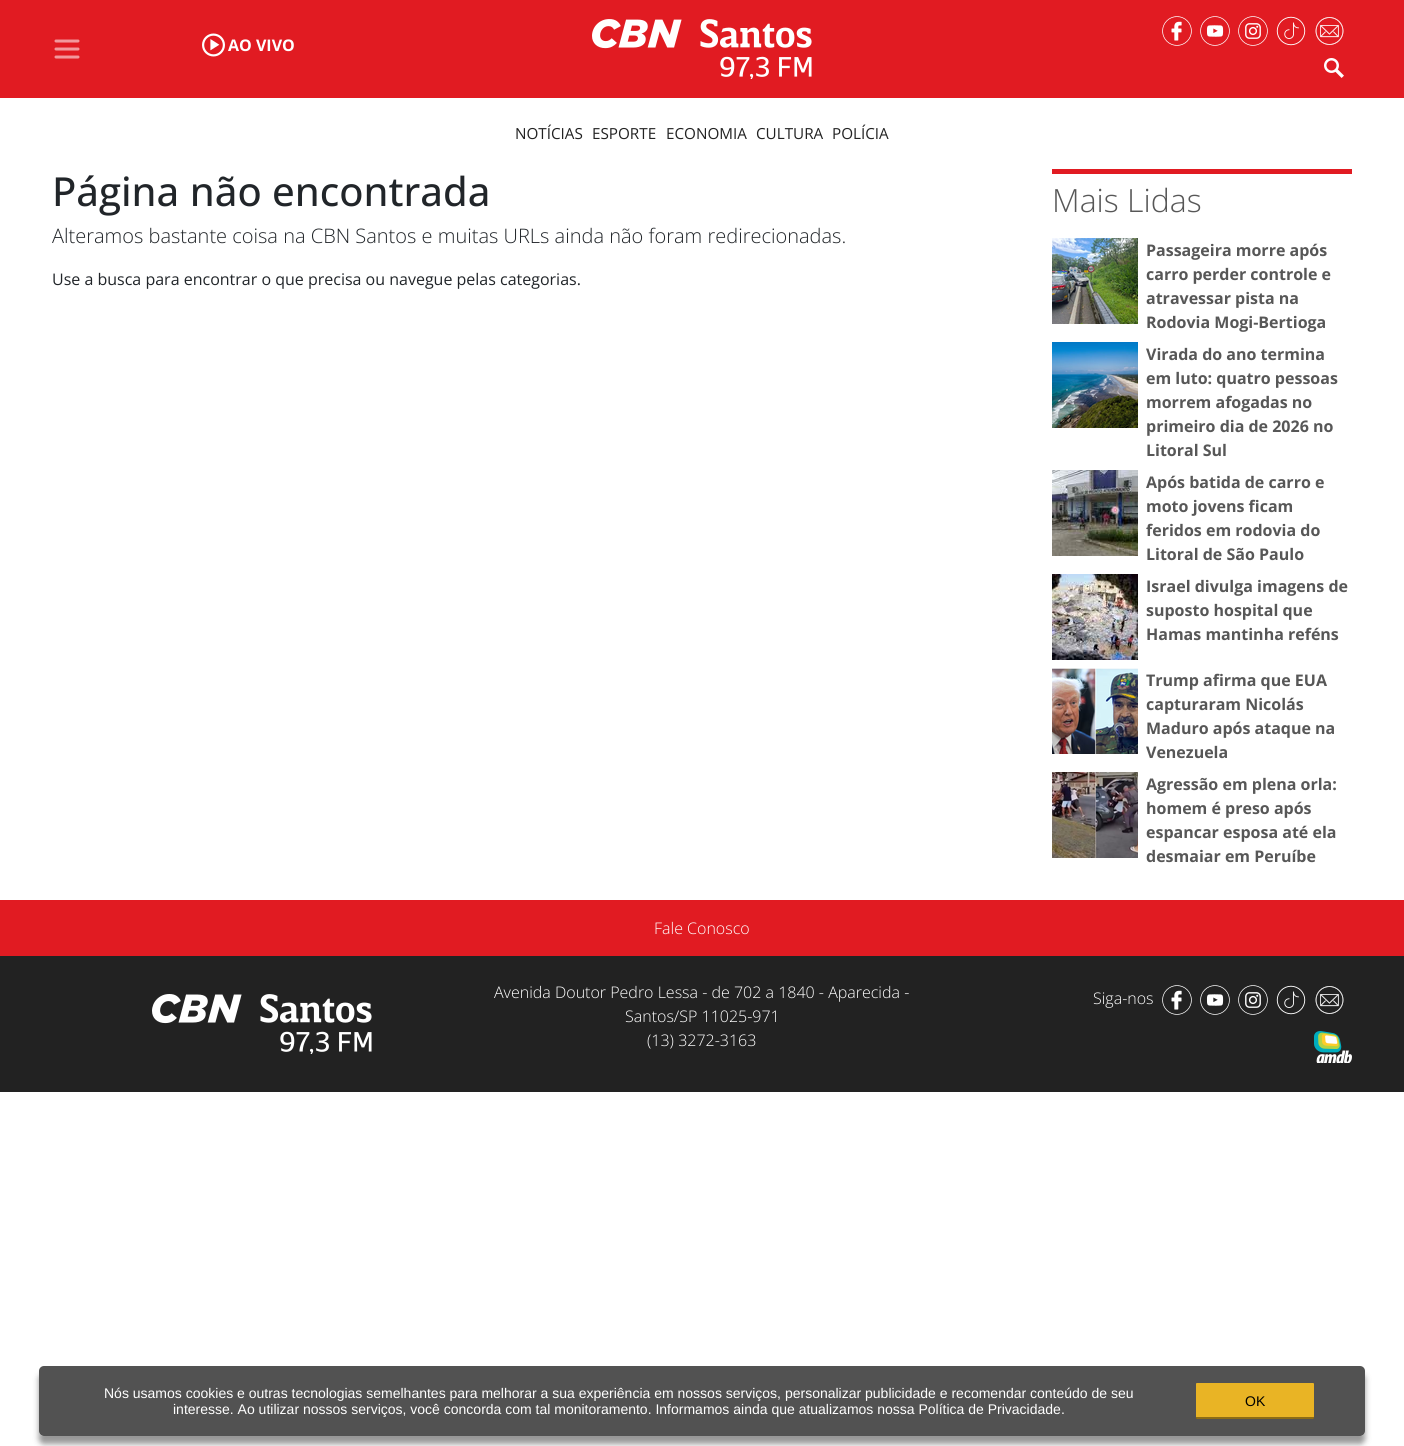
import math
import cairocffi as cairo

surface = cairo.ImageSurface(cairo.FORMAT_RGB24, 1404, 1446)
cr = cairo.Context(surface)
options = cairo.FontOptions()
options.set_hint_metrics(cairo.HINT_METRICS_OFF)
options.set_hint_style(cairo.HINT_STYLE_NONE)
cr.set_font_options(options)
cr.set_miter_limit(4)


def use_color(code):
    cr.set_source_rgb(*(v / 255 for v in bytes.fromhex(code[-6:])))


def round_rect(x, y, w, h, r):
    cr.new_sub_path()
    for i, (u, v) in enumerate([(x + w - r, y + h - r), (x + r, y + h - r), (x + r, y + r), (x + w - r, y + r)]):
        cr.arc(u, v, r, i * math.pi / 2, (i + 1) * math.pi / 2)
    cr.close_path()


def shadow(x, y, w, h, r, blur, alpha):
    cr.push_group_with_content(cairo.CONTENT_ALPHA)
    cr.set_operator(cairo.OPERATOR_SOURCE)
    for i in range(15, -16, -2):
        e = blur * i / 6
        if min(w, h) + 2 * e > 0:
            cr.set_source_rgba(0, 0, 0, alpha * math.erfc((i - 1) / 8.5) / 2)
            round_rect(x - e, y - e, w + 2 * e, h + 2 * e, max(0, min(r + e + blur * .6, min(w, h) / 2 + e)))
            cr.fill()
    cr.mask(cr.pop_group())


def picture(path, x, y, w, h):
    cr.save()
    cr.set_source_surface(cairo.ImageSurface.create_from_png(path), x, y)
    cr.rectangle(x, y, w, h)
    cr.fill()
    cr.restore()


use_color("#ffffff")
cr.paint()
use_color("#e11b22")
cr.rectangle(0, 0, 1404, 98)
cr.fill()
cr.new_path()
cr.move_to(56, 41)
cr.line_to(78, 41)
cr.move_to(56, 49)
cr.line_to(78, 49)
cr.move_to(56, 57)
cr.line_to(78, 57)
use_color("#f2989c")
cr.set_line_width(3)
cr.set_line_cap(cairo.LINE_CAP_ROUND)
cr.stroke()
picture("img1.png", 202, 33, 23, 24)
cr.select_font_face("Open Sans", cairo.FONT_SLANT_NORMAL, cairo.FONT_WEIGHT_BOLD)
cr.set_font_size(16)
use_color("#ffffff")
cr.move_to(228, 51)
cr.show_text("AO VIVO")
picture("img2.png", 592, 19, 220, 60)
picture("img3.png", 1162, 16, 30, 30)
picture("img4.png", 1200, 16, 30, 30)
picture("img5.png", 1238, 16, 30, 30)
picture("img6.png", 1276, 16, 30, 30)
picture("img7.png", 1315, 17, 29, 28)
picture("img8.png", 1324, 58, 20, 20)
cr.select_font_face("Open Sans")
cr.set_font_size(15.25)
use_color("#222222")
cr.move_to(515, 139)
cr.show_text("NOTÍCIAS")
cr.move_to(592, 139)
cr.show_text("ESPORTE")
cr.move_to(666, 139)
cr.show_text("ECONOMIA")
cr.move_to(756, 139)
cr.show_text("CULTURA")
cr.move_to(832, 139)
cr.show_text("POLÍCIA")
cr.select_font_face("Open Sans Medium")
cr.set_font_size(40)
use_color("#212529")
cr.move_to(52, 206)
cr.show_text("Página não encontrada")
cr.select_font_face("Open Sans Light")
cr.set_font_size(20)
cr.move_to(52, 243)
cr.show_text("Alteramos bastante coisa na CBN Santos e muitas URLs ainda não foram redirecionadas.")
cr.select_font_face("Open Sans")
cr.set_font_size(16)
cr.move_to(52, 285)
cr.show_text("Use a busca para encontrar o que precisa ou navegue pelas categorias.")
use_color("#e11b22")
cr.rectangle(1052, 169, 300, 5)
cr.fill()
cr.select_font_face("Open Sans Light")
cr.set_font_size(32)
use_color("#575757")
cr.move_to(1052, 212)
cr.show_text("Mais Lidas")
picture("img9.png", 1052, 238, 86, 86)
cr.select_font_face("Open Sans", cairo.FONT_SLANT_NORMAL, cairo.FONT_WEIGHT_BOLD)
cr.set_font_size(16)
cr.move_to(1146, 256)
cr.show_text("Passageira morre após")
cr.move_to(1146, 280)
cr.show_text("carro perder controle e")
cr.move_to(1146, 304)
cr.show_text("atravessar pista na")
cr.move_to(1146, 328)
cr.show_text("Rodovia Mogi-Bertioga")
picture("img10.png", 1052, 342, 86, 86)
cr.move_to(1146, 360)
cr.show_text("Virada do ano termina")
cr.move_to(1146, 384)
cr.show_text("em luto: quatro pessoas")
cr.move_to(1146, 408)
cr.show_text("morrem afogadas no")
cr.move_to(1146, 432)
cr.show_text("primeiro dia de 2026 no")
cr.move_to(1146, 456)
cr.show_text("Litoral Sul")
picture("img11.png", 1052, 470, 86, 86)
cr.move_to(1146, 488)
cr.show_text("Após batida de carro e")
cr.move_to(1146, 512)
cr.show_text("moto jovens ficam")
cr.move_to(1146, 536)
cr.show_text("feridos em rodovia do")
cr.move_to(1146, 560)
cr.show_text("Litoral de São Paulo")
picture("img12.png", 1052, 574, 86, 86)
cr.move_to(1146, 592)
cr.show_text("Israel divulga imagens de")
cr.move_to(1146, 616)
cr.show_text("suposto hospital que")
cr.move_to(1146, 640)
cr.show_text("Hamas mantinha reféns")
picture("img13.png", 1052, 668, 86, 86)
cr.move_to(1146, 686)
cr.show_text("Trump afirma que EUA")
cr.move_to(1146, 710)
cr.show_text("capturaram Nicolás")
cr.move_to(1146, 734)
cr.show_text("Maduro após ataque na")
cr.move_to(1146, 758)
cr.show_text("Venezuela")
picture("img14.png", 1052, 772, 86, 86)
cr.move_to(1146, 790)
cr.show_text("Agressão em plena orla:")
cr.move_to(1146, 814)
cr.show_text("homem é preso após")
cr.move_to(1146, 838)
cr.show_text("espancar esposa até ela")
cr.move_to(1146, 862)
cr.show_text("desmaiar em Peruíbe")
use_color("#e11b22")
cr.rectangle(0, 900, 1404, 56)
cr.fill()
cr.select_font_face("Open Sans Light")
use_color("#ffffff")
cr.move_to(654, 934)
cr.show_text("Fale Conosco")
use_color("#222222")
cr.rectangle(0, 956, 1404, 136)
cr.fill()
picture("img15.png", 152, 994, 220, 60)
use_color("#ffffff")
cr.move_to(494, 998)
cr.show_text("Avenida Doutor Pedro Lessa - de 702 a 1840 - Aparecida -")
cr.move_to(625, 1022)
cr.show_text("Santos/SP 11025-971")
cr.move_to(647, 1046)
cr.show_text("(13) 3272-3163")
cr.move_to(1093, 1004)
cr.show_text("Siga-nos")
picture("img16.png", 1162, 985, 30, 30)
picture("img17.png", 1200, 985, 30, 30)
picture("img18.png", 1238, 985, 30, 30)
picture("img19.png", 1276, 985, 30, 30)
picture("img20.png", 1315, 986, 29, 28)
picture("img21.png", 1314, 1031, 38, 32)
cr.save()
cr.set_fill_rule(cairo.FILL_RULE_EVEN_ODD)
cr.new_path()
cr.move_to(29, 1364)
cr.line_to(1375, 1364)
cr.line_to(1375, 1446)
cr.line_to(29, 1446)
cr.close_path()
cr.move_to(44, 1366)
cr.line_to(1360, 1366)
cr.curve_to(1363, 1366, 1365, 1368, 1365, 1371)
cr.line_to(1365, 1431)
cr.curve_to(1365, 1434, 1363, 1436, 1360, 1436)
cr.line_to(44, 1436)
cr.curve_to(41, 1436, 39, 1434, 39, 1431)
cr.line_to(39, 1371)
cr.curve_to(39, 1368, 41, 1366, 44, 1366)
cr.close_path()
cr.clip()
use_color("#000000")
shadow(39, 1374, 1326, 70, 5, 3, 0.41)
cr.restore()
cr.set_source_rgba(0.251, 0.251, 0.251, 0.9)
round_rect(39, 1366, 1326, 70, 5)
cr.fill()
cr.select_font_face("Liberation Sans")
cr.set_font_size(14)
use_color("#ffffff")
cr.move_to(104, 1398)
cr.show_text("Nós usamos cookies e outras tecnologias semelhantes para melhorar a sua experiência em nossos serviços, personalizar publicidade e recomendar conteúdo de seu")
cr.move_to(173, 1414)
cr.show_text("interesse. Ao utilizar nossos serviços, você concorda com tal monitoramento. Informamos ainda que atualizamos nossa Política de Privacidade.")
use_color("#e9b425")
round_rect(1196, 1383, 118, 36, 1)
cr.fill()
cr.set_source_rgba(0, 0, 0, 0.4)
cr.new_path()
cr.move_to(1196, 1416)
cr.line_to(1196, 1418)
cr.curve_to(1196, 1419, 1196, 1419, 1197, 1419)
cr.line_to(1313, 1419)
cr.curve_to(1314, 1419, 1314, 1419, 1314, 1418)
cr.line_to(1314, 1416)
cr.curve_to(1314, 1417, 1314, 1417, 1313, 1417)
cr.line_to(1196, 1417)
cr.close_path()
cr.fill()
use_color("#000000")
cr.move_to(1245, 1406)
cr.show_text("OK")
surface.write_to_png("result.png")
